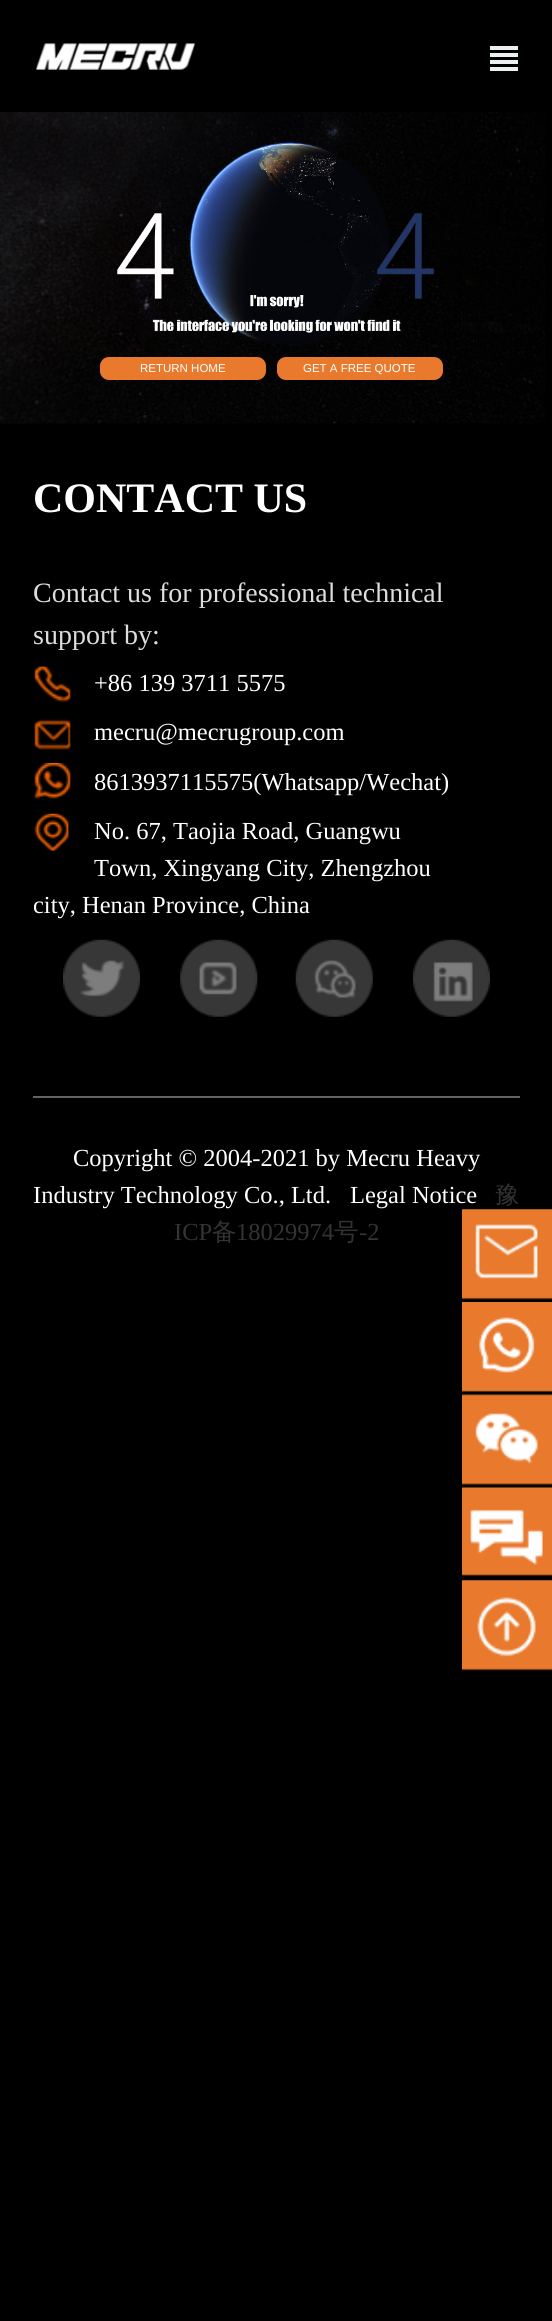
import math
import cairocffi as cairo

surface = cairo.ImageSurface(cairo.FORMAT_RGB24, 552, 2321)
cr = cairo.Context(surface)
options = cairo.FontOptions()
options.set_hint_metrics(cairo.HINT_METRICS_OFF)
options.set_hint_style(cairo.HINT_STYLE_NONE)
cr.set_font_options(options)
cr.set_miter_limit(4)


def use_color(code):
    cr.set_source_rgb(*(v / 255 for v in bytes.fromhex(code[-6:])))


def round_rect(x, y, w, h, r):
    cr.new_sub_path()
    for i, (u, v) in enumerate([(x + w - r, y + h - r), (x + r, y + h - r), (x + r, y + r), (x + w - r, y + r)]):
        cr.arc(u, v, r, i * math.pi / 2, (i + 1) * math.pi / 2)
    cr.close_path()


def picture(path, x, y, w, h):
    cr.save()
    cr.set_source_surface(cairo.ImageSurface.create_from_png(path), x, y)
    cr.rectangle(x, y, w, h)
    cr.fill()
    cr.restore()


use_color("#000000")
cr.paint()
picture("img1.png", 36, 43, 159, 27)
use_color("#ecf0f1")
cr.rectangle(490, 46, 28, 4)
cr.fill()
cr.rectangle(490, 53, 28, 4)
cr.fill()
cr.rectangle(490, 60, 28, 4)
cr.fill()
cr.rectangle(490, 67, 28, 4)
cr.fill()
picture("img2.png", 0, 112, 545, 312)
use_color("#e97a2d")
round_rect(100, 357, 166, 23, 9)
cr.fill()
cr.select_font_face("Liberation Sans")
cr.set_font_size(11.5)
use_color("#ffffff")
cr.move_to(140, 372)
cr.show_text("RETURN HOME")
use_color("#e97a2d")
round_rect(277, 357, 166, 23, 9)
cr.fill()
use_color("#ffffff")
cr.move_to(303, 372)
cr.show_text("GET A FREE QUOTE")
use_color("#616466")
cr.rectangle(33, 1096, 487, 2)
cr.fill()
cr.select_font_face("Liberation Serif", cairo.FONT_SLANT_NORMAL, cairo.FONT_WEIGHT_BOLD)
cr.set_font_size(42)
use_color("#ffffff")
cr.move_to(33, 512)
cr.show_text("CONTACT US")
cr.select_font_face("Liberation Serif")
cr.set_font_size(28)
use_color("#dcdddd")
cr.move_to(33, 602)
cr.show_text("Contact us for professional technical")
cr.move_to(33, 644)
cr.show_text("support by:")
picture("img3.png", 34, 666, 37, 37)
cr.set_font_size(24.5)
use_color("#ffffff")
cr.move_to(94, 691)
cr.show_text("+86 139 3711 5575")
picture("img4.png", 34, 719, 37, 31)
cr.move_to(94, 740)
cr.show_text("mecru@mecrugroup.com")
picture("img5.png", 34, 763, 37, 36)
cr.move_to(94, 790)
cr.show_text("8613937115575(Whatsapp/Wechat)")
picture("img6.png", 34, 813, 35, 38)
cr.move_to(94, 839)
cr.show_text("No. 67, Taojia Road, Guangwu")
cr.move_to(94, 876)
cr.show_text("Town, Xingyang City, Zhengzhou")
cr.move_to(33, 913)
cr.show_text("city, Henan Province, China")
picture("img7.png", 63, 939, 77, 78)
picture("img8.png", 180, 939, 78, 78)
picture("img9.png", 295, 939, 78, 78)
picture("img10.png", 413, 939, 77, 78)
cr.move_to(73, 1166)
cr.show_text("Copyright © 2004-2021 by Mecru Heavy")
cr.move_to(33, 1203)
cr.show_text("Industry Technology Co., Ltd.")
cr.move_to(350, 1203)
cr.show_text("Legal Notice")
cr.select_font_face("WenQuanYi Zen Hei Medium")
use_color("#333333")
cr.move_to(495, 1203)
cr.show_text("豫")
cr.select_font_face("Liberation Serif")
cr.move_to(174, 1240)
cr.show_text("ICP")
cr.select_font_face("WenQuanYi Zen Hei Medium")
cr.move_to(212, 1240)
cr.show_text("备")
cr.select_font_face("Liberation Serif")
cr.move_to(236, 1240)
cr.show_text("18029974")
cr.select_font_face("WenQuanYi Zen Hei Medium")
cr.move_to(334, 1240)
cr.show_text("号")
cr.select_font_face("Liberation Serif")
cr.move_to(359, 1240)
cr.show_text("-2")
picture("img11.png", 462, 1209, 90, 91)
picture("img12.png", 462, 1302, 90, 90)
picture("img13.png", 462, 1394, 90, 92)
picture("img14.png", 462, 1487, 90, 89)
picture("img15.png", 462, 1580, 90, 91)
surface.write_to_png("result.png")
